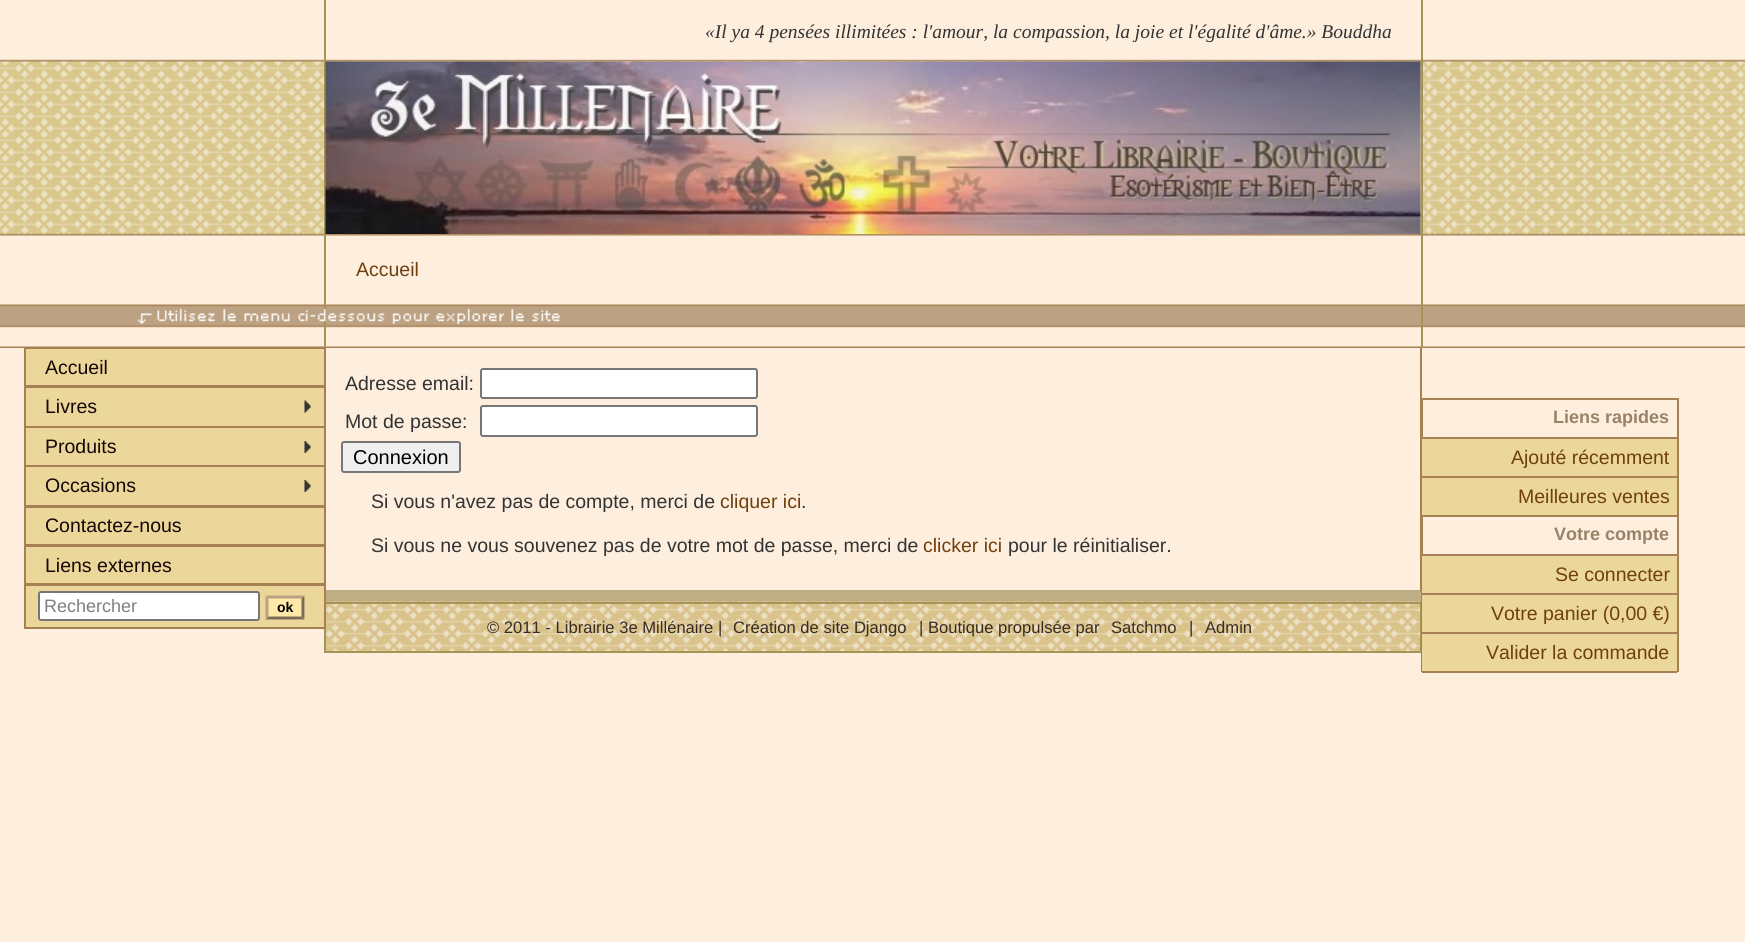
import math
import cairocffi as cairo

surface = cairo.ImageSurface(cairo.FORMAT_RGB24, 1745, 942)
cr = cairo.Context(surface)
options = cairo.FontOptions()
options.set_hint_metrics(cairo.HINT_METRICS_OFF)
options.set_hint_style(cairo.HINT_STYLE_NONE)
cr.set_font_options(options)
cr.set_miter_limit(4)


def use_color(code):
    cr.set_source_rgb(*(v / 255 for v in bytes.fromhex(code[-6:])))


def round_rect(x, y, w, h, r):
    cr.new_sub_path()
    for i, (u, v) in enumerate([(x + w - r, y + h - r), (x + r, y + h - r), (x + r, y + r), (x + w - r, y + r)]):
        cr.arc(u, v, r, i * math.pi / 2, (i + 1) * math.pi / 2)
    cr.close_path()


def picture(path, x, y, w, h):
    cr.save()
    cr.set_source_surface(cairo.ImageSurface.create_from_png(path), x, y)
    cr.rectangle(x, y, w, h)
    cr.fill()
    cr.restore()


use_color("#fdeedd")
cr.paint()
picture("img1.png", 0, 59, 1745, 289)
use_color("#a79355")
cr.rectangle(1421, 0, 2, 348)
cr.fill()
cr.rectangle(324, 0, 2, 348)
cr.fill()
cr.select_font_face("Liberation Serif", cairo.FONT_SLANT_ITALIC)
cr.set_font_size(19.5)
use_color("#333333")
cr.move_to(705, 38)
cr.show_text("«Il ya 4 pensées illimitées : l'amour, la compassion, la joie et l'égalité d'âme.» Bouddha")
picture("img2.png", 325, 61, 1096, 173)
cr.select_font_face("Liberation Sans")
use_color("#703f0e")
cr.move_to(356, 276)
cr.show_text("Accueil")
picture("img3.png", 137, 308, 423, 16)
use_color("#ead799")
cr.rectangle(25, 348, 300, 38)
cr.fill_preserve()
use_color("#a78055")
cr.stroke()
use_color("#160709")
cr.move_to(45, 374)
cr.show_text("Accueil")
use_color("#ead799")
cr.rectangle(26, 388, 298, 117)
cr.fill()
picture("img4.png", 304, 400, 7, 13)
cr.rectangle(25, 387, 300, 40)
use_color("#a78055")
cr.stroke()
use_color("#160709")
cr.move_to(45, 413)
cr.show_text("Livres")
picture("img5.png", 304, 441, 7, 12)
cr.rectangle(25, 427, 300, 39)
use_color("#a78055")
cr.stroke()
use_color("#160709")
cr.move_to(45, 453)
cr.show_text("Produits")
picture("img5.png", 304, 480, 7, 12)
cr.rectangle(25, 466, 300, 40)
use_color("#a78055")
cr.stroke()
use_color("#160709")
cr.move_to(45, 492)
cr.show_text("Occasions")
use_color("#ead799")
cr.rectangle(26, 508, 298, 119)
cr.fill()
cr.rectangle(25, 507, 300, 38)
use_color("#a78055")
cr.stroke()
use_color("#160709")
cr.move_to(45, 532)
cr.show_text("Contactez-nous")
cr.rectangle(25, 546, 300, 38)
use_color("#a78055")
cr.stroke()
use_color("#160709")
cr.move_to(45, 572)
cr.show_text("Liens externes")
use_color("#a78055")
cr.new_path()
cr.move_to(1422, 348)
cr.line_to(1422, 602)
cr.line_to(1420, 590)
cr.line_to(1420, 348)
cr.close_path()
cr.fill()
use_color("#bdaf83")
cr.new_path()
cr.move_to(1422, 602)
cr.line_to(324, 602)
cr.line_to(326, 590)
cr.line_to(1420, 590)
cr.close_path()
cr.fill()
picture("img6.png", 326, 601, 1095, 50)
cr.rectangle(325, 603, 1096, 49)
use_color("#a79355")
cr.stroke()
cr.rectangle(25, 585, 300, 43)
use_color("#a78055")
cr.stroke()
use_color("#ffffff")
round_rect(39, 592, 220, 28, 2)
cr.fill_preserve()
use_color("#767676")
cr.stroke()
cr.set_font_size(18)
use_color("#7f7f7f")
cr.move_to(44, 612)
cr.show_text("Rechercher")
use_color("#fee9a6")
cr.rectangle(266, 596, 39, 24)
cr.fill()
use_color("#bda183")
cr.new_path()
cr.move_to(265.5, 595.5)
cr.line_to(304.5, 595.5)
cr.line_to(301.5, 598.5)
cr.line_to(268.5, 598.5)
cr.close_path()
cr.fill()
use_color("#7e6b57")
cr.new_path()
cr.move_to(304.5, 595.5)
cr.line_to(304.5, 619.5)
cr.line_to(301.5, 616.5)
cr.line_to(301.5, 598.5)
cr.close_path()
cr.fill()
cr.new_path()
cr.move_to(304.5, 619.5)
cr.line_to(265.5, 619.5)
cr.line_to(268.5, 616.5)
cr.line_to(301.5, 616.5)
cr.close_path()
cr.fill()
use_color("#bda183")
cr.new_path()
cr.move_to(265.5, 619.5)
cr.line_to(265.5, 595.5)
cr.line_to(268.5, 598.5)
cr.line_to(268.5, 616.5)
cr.close_path()
cr.fill()
cr.select_font_face("Liberation Sans", cairo.FONT_SLANT_NORMAL, cairo.FONT_WEIGHT_BOLD)
cr.set_font_size(14)
use_color("#000000")
cr.move_to(277, 612)
cr.show_text("ok")
cr.select_font_face("Liberation Sans")
cr.set_font_size(19.5)
use_color("#333333")
cr.move_to(345, 390)
cr.show_text("Adresse email:")
use_color("#ffffff")
round_rect(481, 369, 276, 29, 2)
cr.fill_preserve()
use_color("#767676")
cr.stroke()
use_color("#333333")
cr.move_to(345, 428)
cr.show_text("Mot de passe:")
use_color("#ffffff")
round_rect(481, 406, 276, 30, 2)
cr.fill_preserve()
use_color("#767676")
cr.stroke()
use_color("#efefef")
round_rect(342, 442, 118, 30, 2)
cr.fill_preserve()
use_color("#767676")
cr.stroke()
cr.set_font_size(20)
use_color("#000000")
cr.move_to(353, 464)
cr.show_text("Connexion")
cr.set_font_size(19.5)
use_color("#333333")
cr.move_to(371, 508)
cr.show_text("Si vous n'avez pas de compte, merci de")
use_color("#703f0e")
cr.move_to(720, 508)
cr.show_text("cliquer ici")
use_color("#333333")
cr.move_to(801, 508)
cr.show_text(".")
cr.move_to(371, 552)
cr.show_text("Si vous ne vous souvenez pas de votre mot de passe, merci de")
use_color("#703f0e")
cr.move_to(923, 552)
cr.show_text("clicker ici")
use_color("#333333")
cr.move_to(1008, 552)
cr.show_text("pour le réinitialiser.")
use_color("#a78055")
cr.rectangle(1421, 398, 258, 2)
cr.fill()
cr.rectangle(1677, 398, 2, 274)
cr.fill()
cr.rectangle(1421, 398, 2, 274)
cr.fill()
cr.select_font_face("Liberation Sans", cairo.FONT_SLANT_NORMAL, cairo.FONT_WEIGHT_BOLD)
cr.set_font_size(18)
use_color("#998269")
cr.move_to(1553, 423)
cr.show_text("Liens rapides")
use_color("#ead799")
cr.rectangle(1422, 439, 255, 37)
cr.fill()
use_color("#a78055")
cr.rectangle(1422, 437, 255, 2)
cr.fill()
cr.select_font_face("Liberation Sans")
cr.set_font_size(19.5)
use_color("#703f0e")
cr.move_to(1511, 464)
cr.show_text("Ajouté récemment")
use_color("#ead799")
cr.rectangle(1422, 478, 255, 37)
cr.fill()
use_color("#a78055")
cr.rectangle(1422, 476, 255, 2)
cr.fill()
cr.rectangle(1422, 515, 255, 2)
cr.fill()
use_color("#703f0e")
cr.move_to(1518, 503)
cr.show_text("Meilleures ventes")
cr.select_font_face("Liberation Sans", cairo.FONT_SLANT_NORMAL, cairo.FONT_WEIGHT_BOLD)
cr.set_font_size(18)
use_color("#998269")
cr.move_to(1554, 540)
cr.show_text("Votre compte")
use_color("#ead799")
cr.rectangle(1422, 556, 255, 37)
cr.fill()
use_color("#a78055")
cr.rectangle(1422, 554, 255, 2)
cr.fill()
cr.select_font_face("Liberation Sans")
cr.set_font_size(19.5)
use_color("#703f0e")
cr.move_to(1555, 581)
cr.show_text("Se connecter")
use_color("#ead799")
cr.rectangle(1422, 595, 255, 37)
cr.fill()
use_color("#a78055")
cr.rectangle(1422, 593, 255, 2)
cr.fill()
use_color("#703f0e")
cr.move_to(1491, 620)
cr.show_text("Votre panier (0,00 €)")
use_color("#ead799")
cr.rectangle(1422, 634, 255, 37)
cr.fill()
use_color("#a78055")
cr.rectangle(1422, 632, 255, 2)
cr.fill()
cr.rectangle(1422, 671, 255, 2)
cr.fill()
use_color("#703f0e")
cr.move_to(1486, 659)
cr.show_text("Valider la commande")
cr.set_font_size(16.6)
use_color("#392b24")
cr.move_to(487, 633)
cr.show_text("© 2011 - Librairie 3e Millénaire |")
cr.move_to(733, 633)
cr.show_text("Création de site Django")
cr.move_to(919, 633)
cr.show_text("| Boutique propulsée par")
cr.move_to(1111, 633)
cr.show_text("Satchmo")
cr.move_to(1189, 633)
cr.show_text("|")
cr.move_to(1205, 633)
cr.show_text("Admin")
surface.write_to_png("result.png")
